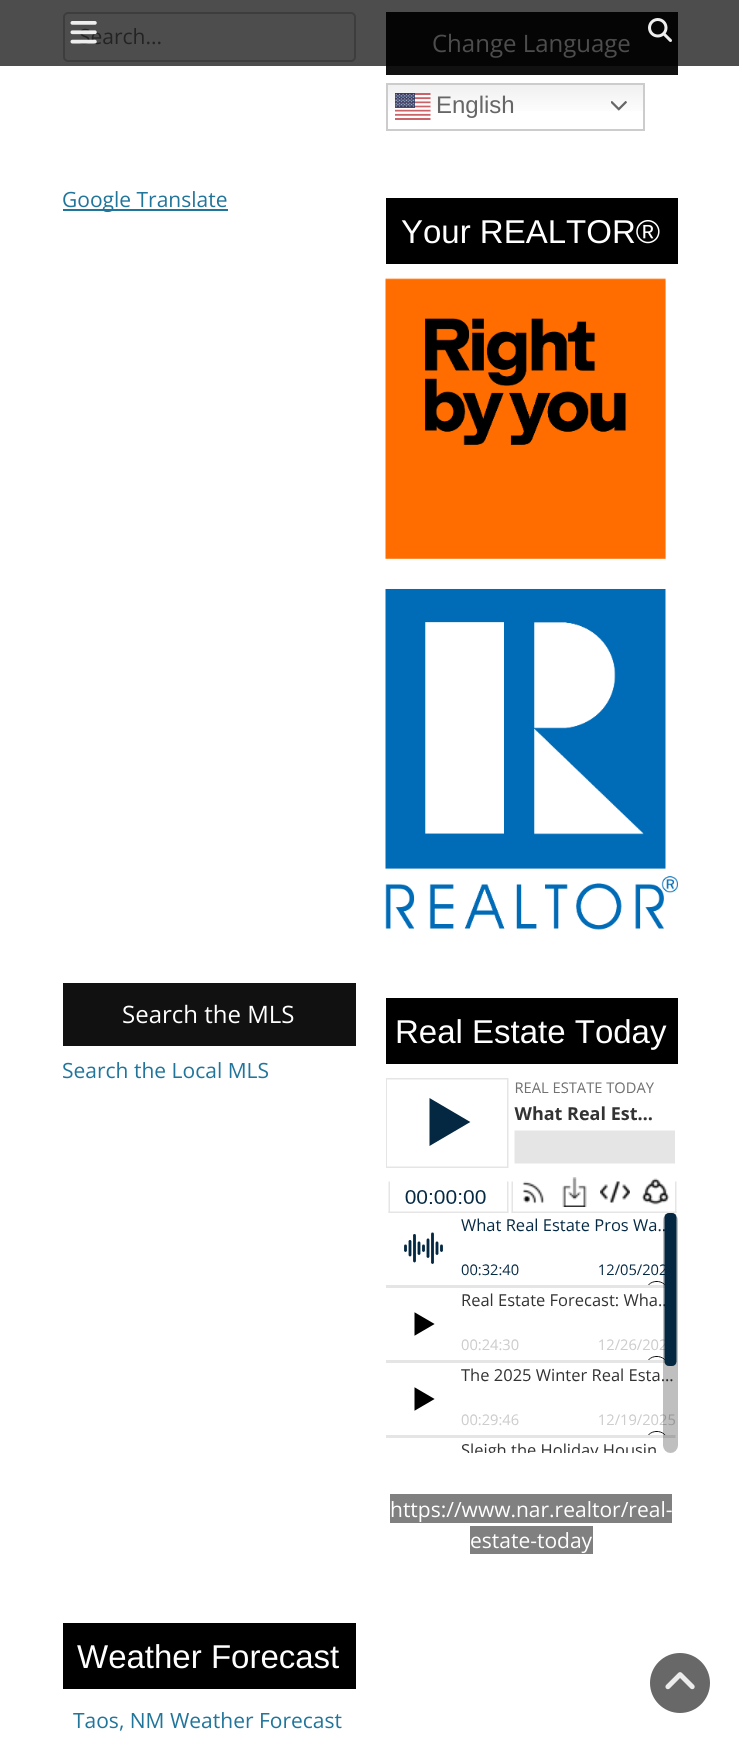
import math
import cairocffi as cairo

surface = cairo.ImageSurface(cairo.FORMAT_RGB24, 739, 1743)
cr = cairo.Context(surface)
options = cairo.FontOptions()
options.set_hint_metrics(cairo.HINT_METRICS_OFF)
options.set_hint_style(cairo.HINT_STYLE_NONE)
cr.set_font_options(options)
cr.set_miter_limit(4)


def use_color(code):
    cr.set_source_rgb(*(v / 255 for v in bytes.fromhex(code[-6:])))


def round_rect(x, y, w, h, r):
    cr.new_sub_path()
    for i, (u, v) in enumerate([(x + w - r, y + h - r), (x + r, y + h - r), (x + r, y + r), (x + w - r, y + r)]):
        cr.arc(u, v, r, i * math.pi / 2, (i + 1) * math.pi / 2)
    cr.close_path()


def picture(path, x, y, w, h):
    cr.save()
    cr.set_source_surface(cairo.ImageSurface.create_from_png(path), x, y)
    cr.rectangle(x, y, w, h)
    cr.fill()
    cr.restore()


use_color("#ffffff")
cr.paint()
use_color("#4d4d4d")
cr.rectangle(0, 0, 739, 66)
cr.fill()
round_rect(64, 13, 291, 48, 4)
use_color("#3d3d3d")
cr.stroke()
cr.select_font_face("Open Sans")
cr.set_font_size(21)
use_color("#232323")
cr.move_to(79, 44)
cr.show_text("Search...")
picture("img1.png", 70, 21, 27, 23)
use_color("#050505")
cr.rectangle(386, 12, 292, 54)
cr.fill()
picture("img2.png", 648, 18, 24, 24)
use_color("#111111")
cr.rectangle(386, 66, 292, 9)
cr.fill()
cr.set_font_size(24)
use_color("#4d4d4d")
cr.move_to(432, 52)
cr.show_text("Change Language")
gradient = cairo.LinearGradient(515, 82, 515, 131)
gradient.add_color_stop_rgba(0, 0.937, 0.937, 0.937, 1)
gradient.add_color_stop_rgba(0.7, 1, 1, 1, 1)
cr.set_source(gradient)
cr.rectangle(388, 85, 255, 26)
cr.fill()
cr.rectangle(387, 84, 257, 46)
use_color("#cccccc")
cr.stroke()
picture("img3.png", 395, 93, 36, 27)
cr.select_font_face("Liberation Sans")
use_color("#666666")
cr.move_to(436, 113)
cr.show_text("English")
picture("img4.png", 611, 101, 16, 10)
use_color("#21759b")
cr.rectangle(63, 209, 165, 2)
cr.fill()
cr.select_font_face("Open Sans")
cr.set_font_size(21)
cr.move_to(62, 207)
cr.show_text("Google Translate")
use_color("#000000")
cr.rectangle(386, 198, 292, 66)
cr.fill()
cr.select_font_face("Liberation Sans")
cr.set_font_size(33)
use_color("#ffffff")
cr.move_to(401, 243)
cr.show_text("Your REALTOR®")
picture("img5.png", 385, 278, 293, 652)
use_color("#111111")
cr.rectangle(63, 983, 293, 63)
cr.fill()
cr.select_font_face("Open Sans")
cr.set_font_size(24)
use_color("#ffffff")
cr.move_to(122, 1023)
cr.show_text("Search the MLS")
cr.set_font_size(21)
use_color("#21759b")
cr.move_to(62, 1078)
cr.show_text("Search the Local MLS")
use_color("#000000")
cr.rectangle(386, 998, 292, 66)
cr.fill()
cr.select_font_face("Liberation Sans")
cr.set_font_size(33)
use_color("#ffffff")
cr.move_to(395, 1043)
cr.show_text("Real Estate Today")
picture("img6.png", 386, 1078, 292, 375)
use_color("#808080")
cr.rectangle(390, 1494, 282, 29)
cr.fill()
cr.select_font_face("Open Sans")
cr.set_font_size(21)
use_color("#ffffff")
cr.move_to(390, 1517)
cr.show_text("https://www.nar.realtor/real-")
use_color("#808080")
cr.rectangle(470, 1526, 123, 28)
cr.fill()
use_color("#ffffff")
cr.move_to(470, 1548)
cr.show_text("estate-today")
use_color("#000000")
cr.rectangle(63, 1623, 293, 66)
cr.fill()
cr.select_font_face("Liberation Sans")
cr.set_font_size(33)
use_color("#ffffff")
cr.move_to(77, 1668)
cr.show_text("Weather Forecast")
cr.select_font_face("Open Sans")
cr.set_font_size(21)
use_color("#21759b")
cr.move_to(73, 1728)
cr.show_text("Taos, NM Weather Forecast")
use_color("#686868")
cr.new_path()
cr.arc(680, 1683, 30, 0, 2 * math.pi)
cr.fill()
picture("img7.png", 665, 1672, 30, 18)
surface.write_to_png("result.png")
